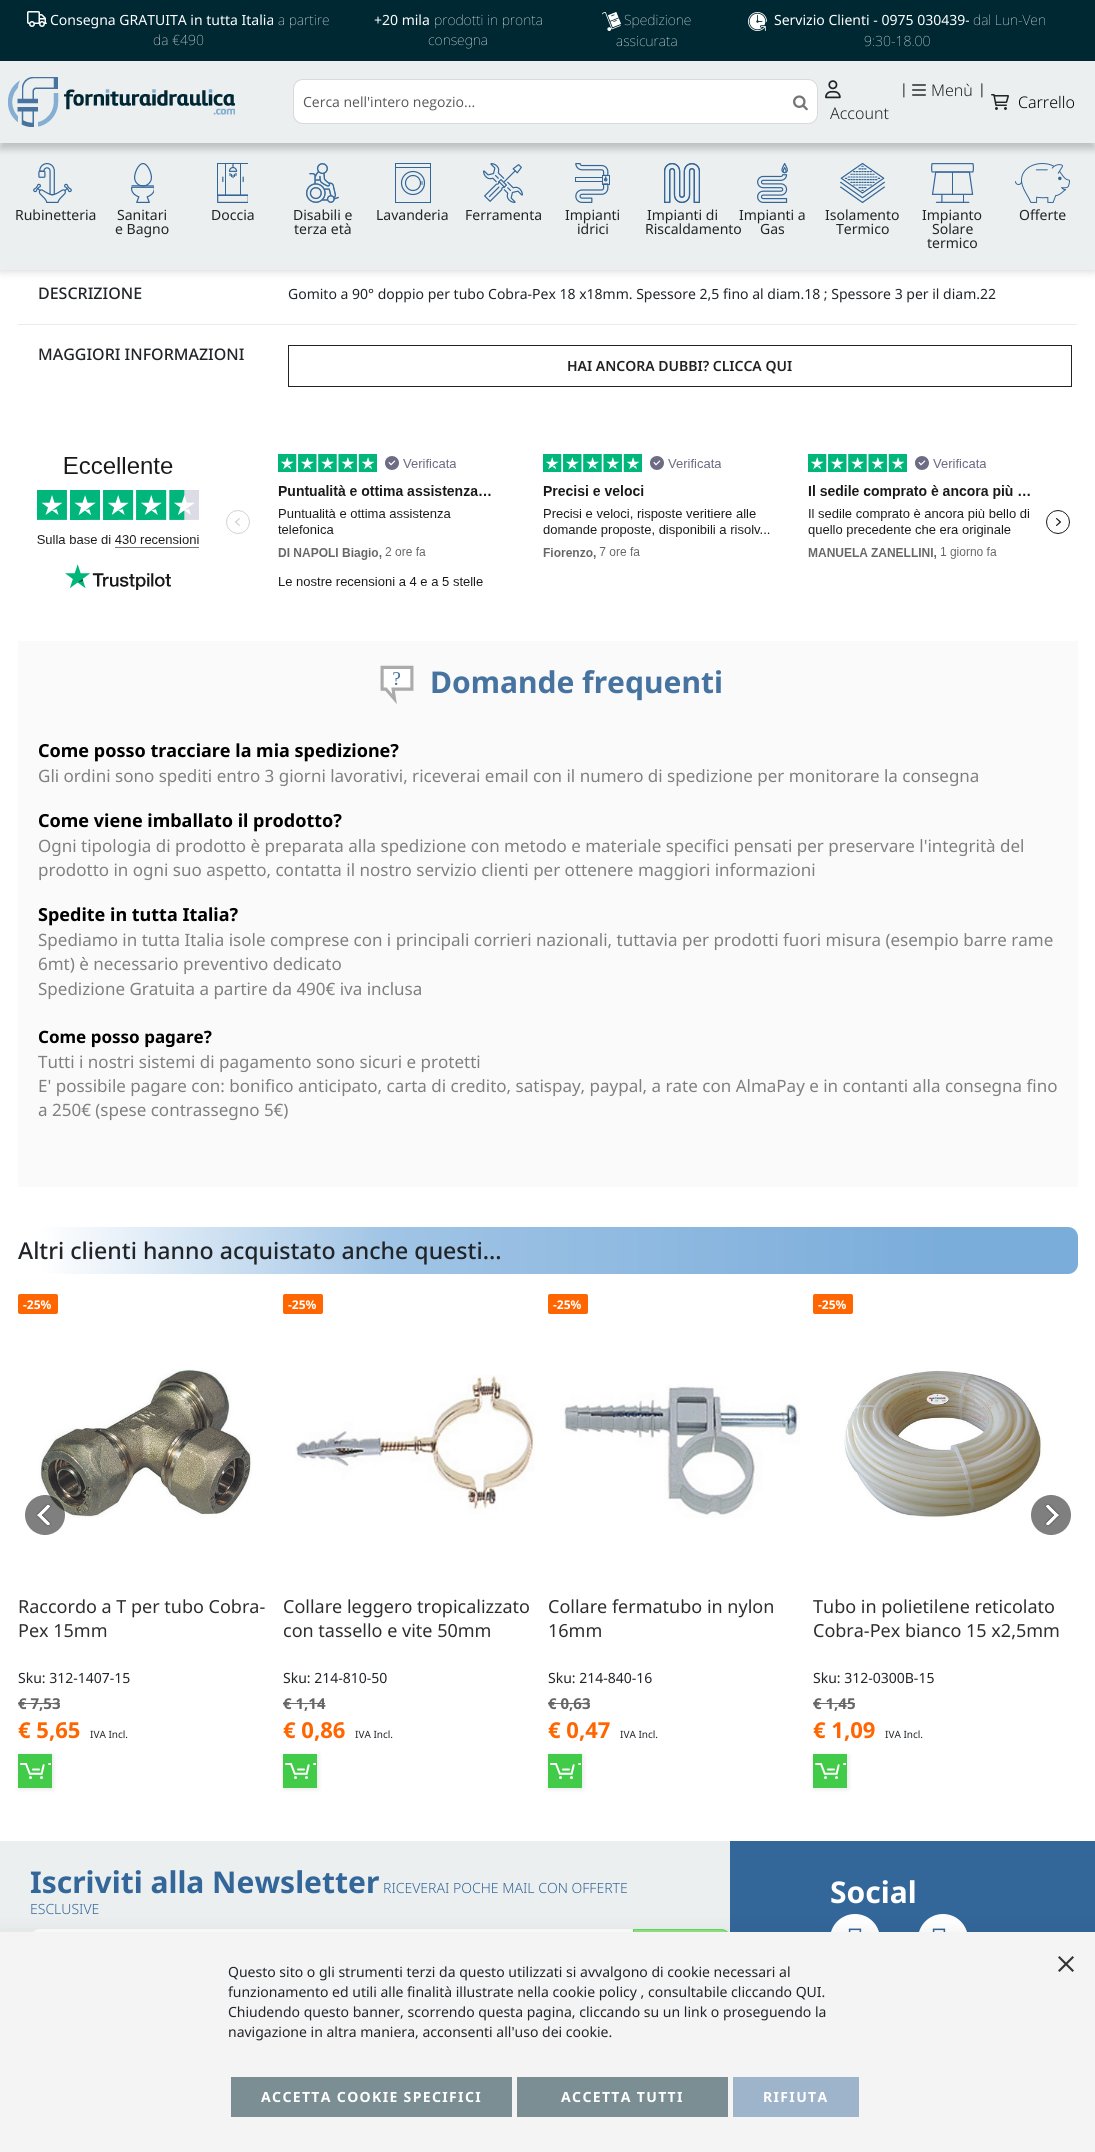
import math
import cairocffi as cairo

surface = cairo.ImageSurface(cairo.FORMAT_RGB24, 1095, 2152)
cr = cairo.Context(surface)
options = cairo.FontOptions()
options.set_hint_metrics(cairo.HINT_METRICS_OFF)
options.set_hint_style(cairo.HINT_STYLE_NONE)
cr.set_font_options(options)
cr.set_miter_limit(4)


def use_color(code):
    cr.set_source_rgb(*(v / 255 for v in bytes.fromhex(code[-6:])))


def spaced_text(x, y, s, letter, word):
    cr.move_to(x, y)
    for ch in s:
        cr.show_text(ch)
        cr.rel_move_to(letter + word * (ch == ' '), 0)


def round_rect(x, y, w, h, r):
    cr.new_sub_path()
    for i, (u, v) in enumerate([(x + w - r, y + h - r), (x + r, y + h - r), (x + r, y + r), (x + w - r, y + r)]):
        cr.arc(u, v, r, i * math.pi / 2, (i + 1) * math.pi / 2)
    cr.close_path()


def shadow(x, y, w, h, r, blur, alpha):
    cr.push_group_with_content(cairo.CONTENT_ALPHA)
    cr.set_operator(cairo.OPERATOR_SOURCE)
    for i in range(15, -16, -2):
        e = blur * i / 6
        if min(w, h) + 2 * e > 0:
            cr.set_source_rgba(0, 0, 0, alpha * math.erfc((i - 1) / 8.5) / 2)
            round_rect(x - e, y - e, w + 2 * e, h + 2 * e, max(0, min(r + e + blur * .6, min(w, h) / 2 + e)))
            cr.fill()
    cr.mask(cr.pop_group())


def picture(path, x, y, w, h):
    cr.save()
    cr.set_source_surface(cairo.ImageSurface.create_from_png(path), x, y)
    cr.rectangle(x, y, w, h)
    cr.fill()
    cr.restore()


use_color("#ffffff")
cr.paint()
use_color("#000000")
shadow(0, 0, 1095, 270, 0, 5, 0.2)
use_color("#ebefef")
cr.rectangle(0, 61, 1095, 209)
cr.fill()
cr.save()
cr.rectangle(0, 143, 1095, 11)
cr.clip()
use_color("#000000")
shadow(0, 6, 1095, 143, 0, 4, 0.2)
cr.restore()
use_color("#002833")
cr.rectangle(0, 0, 1095, 61)
cr.fill()
picture("img1.png", 27, 11, 20, 16)
cr.select_font_face("Noto Sans")
cr.set_font_size(14)
use_color("#ffffff")
cr.move_to(50, 25)
cr.show_text("Consegna GRATUITA in tutta Italia")
cr.select_font_face("Noto Sans Thin")
cr.move_to(278, 25)
cr.show_text("a partire")
cr.move_to(153, 45)
cr.show_text("da €490")
cr.select_font_face("Noto Sans")
cr.move_to(374, 25)
cr.show_text("+20 mila")
cr.select_font_face("Noto Sans Thin")
cr.move_to(434, 25)
cr.show_text("prodotti in pronta")
cr.move_to(428, 45)
cr.show_text("consegna")
picture("img2.png", 602, 12, 19, 19)
cr.move_to(624, 25)
cr.show_text("Spedizione")
cr.move_to(616, 46)
cr.show_text("assicurata")
picture("img3.png", 748, 12, 19, 19)
cr.select_font_face("Noto Sans")
cr.move_to(774, 25)
cr.show_text("Servizio Clienti - 0975 030439-")
cr.select_font_face("Noto Sans Thin")
cr.move_to(973, 25)
cr.show_text("dal Lun-Ven")
cr.move_to(864, 46)
cr.show_text("9:30-18.00")
picture("img4.png", 8, 77, 227, 50)
round_rect(293.5, 79.5, 524, 44, 9.5)
cr.fill_preserve()
use_color("#d9d9d9")
cr.set_line_width(1)
cr.stroke()
cr.select_font_face("Open Sans")
use_color("#575757")
cr.move_to(303, 107)
cr.show_text("Cerca nell'intero negozio...")
picture("img5.png", 793, 95, 15, 16)
cr.select_font_face("Noto Sans")
use_color("#212529")
cr.move_to(900, 94)
cr.show_text("|")
picture("img6.png", 912, 84, 14, 12)
cr.select_font_face("Noto Sans Light")
cr.set_font_size(16)
cr.move_to(931, 96)
cr.show_text("Menù")
cr.select_font_face("Noto Sans")
cr.set_font_size(14)
cr.move_to(978, 94)
cr.show_text("|")
picture("img7.png", 825, 80, 16, 19)
cr.select_font_face("Noto Sans Light")
cr.set_font_size(16)
cr.move_to(830, 119)
cr.show_text("Account")
picture("img8.png", 991, 94, 18, 16)
use_color("#000000")
cr.move_to(1018, 108)
cr.show_text("Carrello")
picture("img9.png", 33, 163, 39, 40)
cr.select_font_face("Noto Sans")
cr.set_font_size(14)
use_color("#212529")
cr.move_to(15, 220)
cr.show_text("Rubinetteria")
picture("img10.png", 131, 163, 23, 40)
cr.move_to(117, 220)
cr.show_text("Sanitari")
cr.move_to(115, 234)
cr.show_text("e Bagno")
picture("img11.png", 217, 163, 31, 40)
cr.move_to(211, 220)
cr.show_text("Doccia")
picture("img12.png", 306, 163, 33, 40)
cr.move_to(293, 220)
cr.show_text("Disabili e")
cr.move_to(294, 234)
cr.show_text("terza età")
cr.new_path()
cr.arc(413, 183, 11.5, 0, 2 * math.pi)
use_color("#336699")
cr.set_line_width(1.2)
cr.stroke()
cr.arc(413, 183, 7.5, 0, 2 * math.pi)
cr.stroke()
cr.rectangle(395.5, 163.5, 35, 39)
cr.set_line_width(1)
cr.stroke()
cr.rectangle(396, 167, 35, 1)
cr.fill()
cr.new_path()
cr.move_to(422, 181.5)
cr.line_to(422, 184.5)
cr.set_line_cap(cairo.LINE_CAP_ROUND)
cr.stroke()
use_color("#212529")
cr.move_to(376, 220)
cr.show_text("Lavanderia")
picture("img13.png", 483, 163, 40, 40)
cr.move_to(465, 220)
cr.show_text("Ferramenta")
picture("img14.png", 575, 163, 35, 40)
cr.move_to(565, 220)
cr.show_text("Impianti")
cr.move_to(577, 234)
cr.show_text("idrici")
picture("img15.png", 664, 163, 36, 40)
cr.move_to(647, 220)
cr.show_text("Impianti di")
cr.move_to(645, 234)
cr.show_text("Riscaldamento")
picture("img16.png", 757, 163, 31, 40)
cr.move_to(739, 220)
cr.show_text("Impianti a")
cr.move_to(760, 234)
cr.show_text("Gas")
picture("img17.png", 840, 163, 45, 40)
cr.move_to(825, 220)
cr.show_text("Isolamento")
cr.move_to(836, 234)
cr.show_text("Termico")
picture("img18.png", 931, 163, 43, 40)
cr.move_to(922, 220)
cr.show_text("Impianto")
cr.move_to(932, 234)
cr.show_text("Solare")
cr.move_to(927, 248)
cr.show_text("termico")
picture("img19.png", 1015, 163, 55, 40)
cr.move_to(1019, 220)
cr.show_text("Offerte")
cr.select_font_face("Noto Sans Medium")
cr.set_font_size(16)
cr.move_to(38, 299)
cr.show_text("DESCRIZIONE")
cr.select_font_face("Noto Sans")
cr.set_font_size(14)
cr.move_to(288, 299)
cr.show_text("Gomito a 90° doppio per tubo Cobra-Pex 18 x18mm. Spessore 2,5 fino al diam.18 ; Spessore 3 per il diam.22")
use_color("#e8ebf1")
cr.rectangle(18, 324, 1059, 1)
cr.fill()
cr.select_font_face("Noto Sans Medium")
cr.set_font_size(16)
use_color("#212529")
cr.move_to(38, 360)
cr.show_text("MAGGIORI INFORMAZIONI")
cr.rectangle(288.5, 345.5, 783, 41)
use_color("#222222")
cr.set_line_cap(cairo.LINE_CAP_BUTT)
cr.stroke()
cr.select_font_face("Noto Sans SemiBold")
cr.set_font_size(14)
cr.move_to(567, 371)
cr.show_text("HAI ANCORA DUBBI? CLICCA QUI")
picture("img20.png", 37, 454, 1033, 136)
use_color("#fafafa")
cr.rectangle(18, 641, 1060, 546)
cr.fill()
picture("img21.png", 380, 665, 34, 39)
cr.select_font_face("Noto Sans", cairo.FONT_SLANT_NORMAL, cairo.FONT_WEIGHT_BOLD)
cr.set_font_size(30)
use_color("#4673a0")
cr.move_to(430, 693)
cr.show_text("Domande frequenti")
cr.set_font_size(18)
use_color("#000000")
cr.move_to(38, 757)
cr.show_text("Come posso tracciare la mia spedizione?")
cr.select_font_face("Noto Sans")
cr.set_font_size(17)
use_color("#808080")
cr.move_to(38, 782)
cr.show_text("Gli ordini sono spediti entro 3 giorni lavorativi, riceverai email con il numero di spedizione per monitorare la consegna")
cr.select_font_face("Noto Sans", cairo.FONT_SLANT_NORMAL, cairo.FONT_WEIGHT_BOLD)
cr.set_font_size(18)
use_color("#000000")
cr.move_to(38, 827)
cr.show_text("Come viene imballato il prodotto?")
cr.select_font_face("Noto Sans")
cr.set_font_size(17)
use_color("#808080")
cr.move_to(38, 852)
cr.show_text("Ogni tipologia di prodotto è preparata alla spedizione con metodo e materiale specifici pensati per preservare l'integrità del")
cr.move_to(38, 876)
cr.show_text("prodotto in ogni suo aspetto, contatta il nostro servizio clienti per ottenere maggiori informazioni")
cr.select_font_face("Noto Sans", cairo.FONT_SLANT_NORMAL, cairo.FONT_WEIGHT_BOLD)
cr.set_font_size(18)
use_color("#000000")
cr.move_to(38, 921)
cr.show_text("Spedite in tutta Italia?")
cr.select_font_face("Noto Sans")
cr.set_font_size(17)
use_color("#808080")
cr.move_to(38, 946)
cr.show_text("Spediamo in tutta Italia isole comprese con i principali corrieri nazionali, tuttavia per prodotti fuori misura (esempio barre rame")
cr.move_to(38, 970)
cr.show_text("6mt) è necessario preventivo dedicato")
cr.move_to(38, 995)
cr.show_text("Spedizione Gratuita a partire da 490€ iva inclusa")
cr.select_font_face("Noto Sans", cairo.FONT_SLANT_NORMAL, cairo.FONT_WEIGHT_BOLD)
use_color("#000000")
cr.move_to(38, 1043)
cr.show_text("Come posso pagare?")
cr.select_font_face("Noto Sans")
use_color("#808080")
cr.move_to(38, 1068)
cr.show_text("Tutti i nostri sistemi di pagamento sono sicuri e protetti")
cr.move_to(38, 1092)
cr.show_text("E' possibile pagare con: bonifico anticipato, carta di credito, satispay, paypal, a rate con AlmaPay e in contanti alla consegna fino")
cr.move_to(38, 1116)
cr.show_text("a 250€ (spese contrassegno 5€)")
gradient = cairo.LinearGradient(18, 1251, 1078, 1251)
gradient.add_color_stop_rgba(0.02, 1, 1, 1, 1)
gradient.add_color_stop_rgba(0.35, 0.627, 0.769, 0.898, 1)
gradient.add_color_stop_rgba(0.87, 0.482, 0.678, 0.859, 1)
cr.set_source(gradient)
round_rect(18, 1227, 1060, 47, 10)
cr.fill()
cr.select_font_face("Noto Sans Medium")
cr.set_font_size(23.1)
use_color("#212529")
cr.move_to(18, 1259)
cr.show_text("Altri clienti hanno acquistato anche questi...")
use_color("#ff6601")
round_rect(18, 1294, 40, 20, 2)
cr.fill()
cr.select_font_face("Noto Sans", cairo.FONT_SLANT_NORMAL, cairo.FONT_WEIGHT_BOLD)
cr.set_font_size(12)
use_color("#ffffff")
cr.move_to(23, 1309)
cr.show_text("-25%")
picture("img22.png", 39, 1369, 213, 149)
cr.select_font_face("Noto Sans")
cr.set_font_size(18)
use_color("#2e2e2e")
cr.move_to(18, 1613)
cr.show_text("Raccordo a T per tubo Cobra-")
cr.move_to(18, 1637)
cr.show_text("Pex 15mm")
cr.set_font_size(14)
use_color("#212529")
cr.move_to(18, 1683)
cr.show_text("Sku: 312-1407-15")
cr.select_font_face("Noto Sans", cairo.FONT_SLANT_NORMAL, cairo.FONT_WEIGHT_BOLD)
cr.set_font_size(15)
use_color("#666666")
cr.move_to(18, 1709)
cr.show_text("€ 7,53")
cr.rectangle(18, 1703, 42, 1)
cr.fill()
cr.set_font_size(22)
use_color("#ff6601")
cr.move_to(18, 1738)
cr.show_text("€ 5,65")
cr.select_font_face("Noto Sans")
cr.set_font_size(10)
use_color("#212529")
cr.move_to(90, 1738)
cr.show_text("IVA Incl.")
use_color("#000000")
shadow(19, 1755, 34, 34, 0, 2.5, 0.11)
use_color("#42ca49")
cr.rectangle(19, 1755, 32, 32)
cr.fill()
picture("img23.png", 20, 1763, 31, 16)
cr.rectangle(18.5, 1754.5, 33, 33)
cr.stroke()
use_color("#ff6601")
round_rect(283, 1294, 40, 20, 2)
cr.fill()
cr.select_font_face("Noto Sans", cairo.FONT_SLANT_NORMAL, cairo.FONT_WEIGHT_BOLD)
cr.set_font_size(12)
use_color("#ffffff")
cr.move_to(288, 1309)
cr.show_text("-25%")
picture("img24.png", 295, 1375, 240, 140)
cr.select_font_face("Noto Sans")
cr.set_font_size(18)
use_color("#2e2e2e")
cr.move_to(283, 1613)
cr.show_text("Collare leggero tropicalizzato")
cr.move_to(283, 1637)
cr.show_text("con tassello e vite 50mm")
cr.set_font_size(14)
use_color("#212529")
cr.move_to(283, 1683)
cr.show_text("Sku: 214-810-50")
cr.select_font_face("Noto Sans", cairo.FONT_SLANT_NORMAL, cairo.FONT_WEIGHT_BOLD)
cr.set_font_size(15)
use_color("#666666")
cr.move_to(283, 1709)
cr.show_text("€ 1,14")
cr.rectangle(283, 1703, 42, 1)
cr.fill()
cr.set_font_size(22)
use_color("#ff6601")
cr.move_to(283, 1738)
cr.show_text("€ 0,86")
cr.select_font_face("Noto Sans")
cr.set_font_size(10)
use_color("#212529")
cr.move_to(355, 1738)
cr.show_text("IVA Incl.")
use_color("#000000")
shadow(284, 1755, 34, 34, 0, 2.5, 0.11)
use_color("#42ca49")
cr.rectangle(284, 1755, 32, 32)
cr.fill()
picture("img23.png", 285, 1763, 31, 16)
cr.rectangle(283.5, 1754.5, 33, 33)
cr.stroke()
use_color("#ff6601")
round_rect(548, 1294, 40, 20, 2)
cr.fill()
cr.select_font_face("Noto Sans", cairo.FONT_SLANT_NORMAL, cairo.FONT_WEIGHT_BOLD)
cr.set_font_size(12)
use_color("#ffffff")
cr.move_to(553, 1309)
cr.show_text("-25%")
picture("img25.png", 560, 1384, 240, 134)
cr.select_font_face("Noto Sans")
cr.set_font_size(18)
use_color("#2e2e2e")
cr.move_to(548, 1613)
cr.show_text("Collare fermatubo in nylon")
cr.move_to(548, 1637)
cr.show_text("16mm")
cr.set_font_size(14)
use_color("#212529")
cr.move_to(548, 1683)
cr.show_text("Sku: 214-840-16")
cr.select_font_face("Noto Sans", cairo.FONT_SLANT_NORMAL, cairo.FONT_WEIGHT_BOLD)
cr.set_font_size(15)
use_color("#666666")
cr.move_to(548, 1709)
cr.show_text("€ 0,63")
cr.rectangle(548, 1703, 42, 1)
cr.fill()
cr.set_font_size(22)
use_color("#ff6601")
cr.move_to(548, 1738)
cr.show_text("€ 0,47")
cr.select_font_face("Noto Sans")
cr.set_font_size(10)
use_color("#212529")
cr.move_to(620, 1738)
cr.show_text("IVA Incl.")
use_color("#000000")
shadow(549, 1755, 34, 34, 0, 2.5, 0.11)
use_color("#42ca49")
cr.rectangle(549, 1755, 32, 32)
cr.fill()
picture("img23.png", 550, 1763, 31, 16)
cr.rectangle(548.5, 1754.5, 33, 33)
cr.stroke()
use_color("#ff6601")
round_rect(813, 1294, 40, 20, 2)
cr.fill()
cr.select_font_face("Noto Sans", cairo.FONT_SLANT_NORMAL, cairo.FONT_WEIGHT_BOLD)
cr.set_font_size(12)
use_color("#ffffff")
cr.move_to(818, 1309)
cr.show_text("-25%")
picture("img26.png", 844, 1370, 198, 148)
cr.select_font_face("Noto Sans")
cr.set_font_size(18)
use_color("#2e2e2e")
cr.move_to(813, 1613)
cr.show_text("Tubo in polietilene reticolato")
cr.move_to(813, 1637)
cr.show_text("Cobra-Pex bianco 15 x2,5mm")
cr.set_font_size(14)
use_color("#212529")
cr.move_to(813, 1683)
cr.show_text("Sku: 312-0300B-15")
cr.select_font_face("Noto Sans", cairo.FONT_SLANT_NORMAL, cairo.FONT_WEIGHT_BOLD)
cr.set_font_size(15)
use_color("#666666")
cr.move_to(813, 1709)
cr.show_text("€ 1,45")
cr.rectangle(813, 1703, 42, 1)
cr.fill()
cr.set_font_size(22)
use_color("#ff6601")
cr.move_to(813, 1738)
cr.show_text("€ 1,09")
cr.select_font_face("Noto Sans")
cr.set_font_size(10)
use_color("#212529")
cr.move_to(885, 1738)
cr.show_text("IVA Incl.")
use_color("#000000")
shadow(814, 1755, 34, 34, 0, 2.5, 0.11)
use_color("#42ca49")
cr.rectangle(814, 1755, 32, 32)
cr.fill()
picture("img23.png", 815, 1763, 31, 16)
cr.rectangle(813.5, 1754.5, 33, 33)
cr.stroke()
picture("img27.png", 25, 1494, 42, 41)
picture("img28.png", 1031, 1495, 40, 40)
use_color("#ebefef")
cr.rectangle(0, 1841, 730, 91)
cr.fill()
cr.select_font_face("Noto Sans", cairo.FONT_SLANT_NORMAL, cairo.FONT_WEIGHT_BOLD)
cr.set_font_size(30)
use_color("#336699")
cr.move_to(30, 1893)
cr.show_text("Iscriviti alla Newsletter")
cr.select_font_face("Noto Sans Light")
cr.set_font_size(14)
cr.move_to(383, 1893)
cr.show_text("RICEVERAI POCHE MAIL CON OFFERTE")
cr.move_to(30, 1914)
cr.show_text("ESCLUSIVE")
use_color("#ffffff")
cr.new_path()
cr.move_to(40, 1929)
cr.line_to(633, 1929)
cr.line_to(633, 1979)
cr.line_to(40, 1979)
cr.curve_to(34.5, 1979, 30, 1974.5, 30, 1969)
cr.line_to(30, 1939)
cr.curve_to(30, 1933.5, 34.5, 1929, 40, 1929)
cr.close_path()
cr.fill()
cr.set_source_rgba(0.216, 0.851, 0.067, 0.5)
cr.new_path()
cr.move_to(633, 1929)
cr.line_to(721, 1929)
cr.curve_to(726.5, 1929, 731, 1933.5, 731, 1939)
cr.line_to(731, 1969)
cr.curve_to(731, 1974.5, 726.5, 1979, 721, 1979)
cr.line_to(633, 1979)
cr.close_path()
cr.fill()
cr.new_path()
cr.move_to(633.5, 1929.5)
cr.line_to(721, 1929.5)
cr.curve_to(726, 1929.5, 730.5, 1934, 730.5, 1939)
cr.line_to(730.5, 1969)
cr.curve_to(730.5, 1974, 726, 1978.5, 721, 1978.5)
cr.line_to(633.5, 1978.5)
cr.close_path()
cr.set_source_rgba(0.259, 0.792, 0.286, 0.5)
cr.stroke()
use_color("#336699")
cr.rectangle(730, 1841, 365, 91)
cr.fill()
cr.select_font_face("Noto Sans", cairo.FONT_SLANT_NORMAL, cairo.FONT_WEIGHT_BOLD)
cr.set_font_size(30)
use_color("#ffffff")
cr.move_to(830, 1903)
cr.show_text("Social")
cr.new_path()
cr.arc(855, 1939, 25, 0, 2 * math.pi)
cr.fill()
picture("img29.png", 848, 1928, 14, 4)
cr.arc(943, 1939, 25, 0, 2 * math.pi)
cr.fill()
picture("img29.png", 932, 1928, 14, 4)
use_color("#000000")
shadow(0, 1930, 1095, 220, 0, 9, 0.06)
use_color("#f4f4f4")
cr.rectangle(0, 1932, 1095, 220)
cr.fill()
use_color("#333333")
cr.new_path()
cr.move_to(1072.5, 1956)
cr.line_to(1074, 1957.5)
cr.line_to(1059.5, 1972)
cr.line_to(1058, 1970.5)
cr.close_path()
cr.fill()
cr.new_path()
cr.move_to(1058, 1957.5)
cr.line_to(1059.5, 1956)
cr.line_to(1074, 1970.5)
cr.line_to(1072.5, 1972)
cr.close_path()
cr.fill()
cr.select_font_face("Noto Sans")
cr.set_font_size(14)
use_color("#212529")
cr.move_to(228, 1977)
cr.show_text("Questo sito o gli strumenti terzi da questo utilizzati si avvalgono di cookie necessari al")
cr.move_to(228, 1997)
cr.show_text("funzionamento ed utili alle finalità illustrate nella cookie policy , consultabile cliccando QUI.")
cr.move_to(228, 2017)
cr.show_text("Chiudendo questo banner, scorrendo questa pagina, cliccando su un link o proseguendo la")
cr.move_to(228, 2037)
cr.show_text("navigazione in altra maniera, acconsenti all'uso dei cookie.")
use_color("#7a8e94")
cr.rectangle(231, 2077, 281, 40)
cr.fill()
cr.select_font_face("Noto Sans", cairo.FONT_SLANT_NORMAL, cairo.FONT_WEIGHT_BOLD)
use_color("#ffffff")
spaced_text(261, 2102, "ACCETTA COOKIE SPECIFICI", 1.35, 0)
use_color("#7a8e94")
cr.rectangle(517, 2077, 211, 40)
cr.fill()
use_color("#ffffff")
spaced_text(561, 2102, "ACCETTA TUTTI", 1.35, 0)
use_color("#9db4ca")
cr.rectangle(733, 2077, 126, 40)
cr.fill()
use_color("#ffffff")
spaced_text(763, 2102, "RIFIUTA", 1.35, 0)
surface.write_to_png("result.png")
